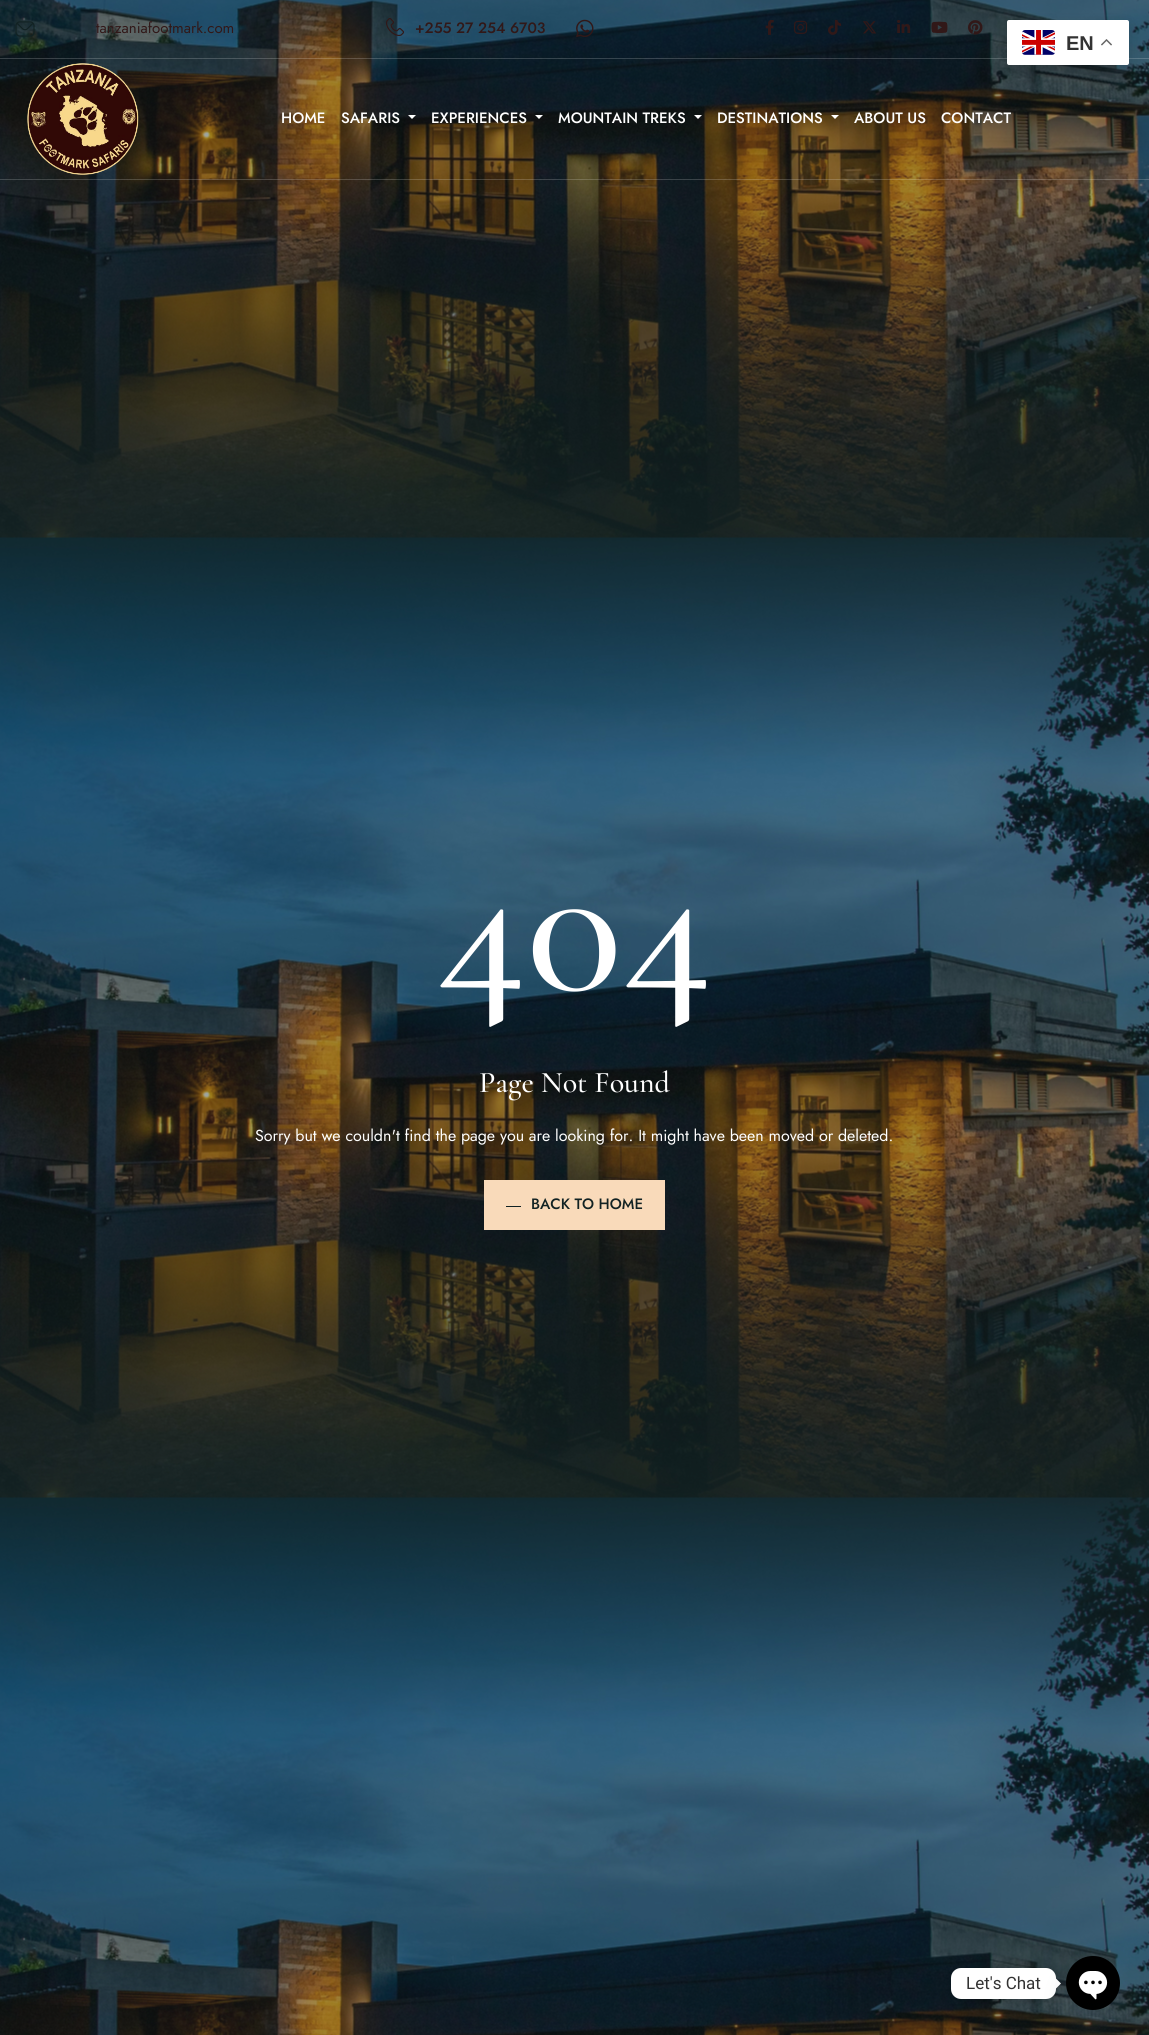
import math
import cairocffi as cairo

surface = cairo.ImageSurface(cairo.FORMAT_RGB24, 1149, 2035)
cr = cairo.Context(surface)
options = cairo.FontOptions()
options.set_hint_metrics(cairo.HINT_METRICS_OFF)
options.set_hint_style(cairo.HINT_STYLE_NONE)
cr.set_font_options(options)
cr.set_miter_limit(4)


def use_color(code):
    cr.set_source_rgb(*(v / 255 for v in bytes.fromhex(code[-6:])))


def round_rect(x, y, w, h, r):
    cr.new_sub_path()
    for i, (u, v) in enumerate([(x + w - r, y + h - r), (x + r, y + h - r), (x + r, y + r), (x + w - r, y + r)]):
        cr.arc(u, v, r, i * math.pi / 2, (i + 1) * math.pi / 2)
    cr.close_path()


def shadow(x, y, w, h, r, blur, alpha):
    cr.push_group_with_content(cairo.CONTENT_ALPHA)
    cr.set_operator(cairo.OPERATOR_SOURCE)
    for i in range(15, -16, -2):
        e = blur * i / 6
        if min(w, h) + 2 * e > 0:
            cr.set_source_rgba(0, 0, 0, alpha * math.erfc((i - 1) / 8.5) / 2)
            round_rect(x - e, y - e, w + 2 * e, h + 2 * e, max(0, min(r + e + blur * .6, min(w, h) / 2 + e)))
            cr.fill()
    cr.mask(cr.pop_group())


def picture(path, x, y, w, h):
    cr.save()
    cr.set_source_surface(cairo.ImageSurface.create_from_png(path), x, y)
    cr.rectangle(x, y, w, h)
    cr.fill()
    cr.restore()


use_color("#ffffff")
cr.paint()
picture("img12.png", 0, 0, 1149, 2035)
picture("img1.png", 15, 21, 20, 16)
cr.select_font_face("Jost")
cr.set_font_size(15)
use_color("#311818")
cr.move_to(96, 33)
cr.show_text("tanzaniafootmark.com")
picture("img2.png", 386, 18, 18, 18)
cr.select_font_face("Jost Medium")
cr.move_to(415, 33)
cr.show_text("+255 27 254 6703")
picture("img3.png", 576, 19, 18, 18)
picture("img4.png", 765, 20, 9, 15)
picture("img5.png", 794, 20, 14, 14)
picture("img6.png", 828, 19, 14, 16)
picture("img7.png", 863, 21, 13, 13)
picture("img8.png", 897, 20, 14, 13)
picture("img9.png", 931, 21, 17, 12)
picture("img10.png", 968, 20, 15, 15)
cr.set_source_rgba(1, 1, 1, 0.18)
cr.rectangle(0, 58, 1149, 1)
cr.fill()
cr.rectangle(0, 179, 1149, 1)
cr.fill()
picture("img11.png", 27, 63, 112, 112)
use_color("#ffffff")
cr.move_to(281, 123)
cr.show_text("HOME")
cr.move_to(341, 123)
cr.show_text("SAFARIS")
cr.new_path()
cr.move_to(408, 115)
cr.line_to(416, 115)
cr.line_to(412, 119)
cr.close_path()
cr.fill()
cr.move_to(431, 123)
cr.show_text("EXPERIENCES")
cr.new_path()
cr.move_to(535, 115)
cr.line_to(543, 115)
cr.line_to(539, 119)
cr.close_path()
cr.fill()
cr.move_to(558, 123)
cr.show_text("MOUNTAIN TREKS")
cr.new_path()
cr.move_to(694, 115)
cr.line_to(702, 115)
cr.line_to(698, 119)
cr.close_path()
cr.fill()
cr.move_to(717, 123)
cr.show_text("DESTINATIONS")
cr.new_path()
cr.move_to(831, 115)
cr.line_to(839, 115)
cr.line_to(835, 119)
cr.close_path()
cr.fill()
cr.move_to(854, 123)
cr.show_text("ABOUT US")
cr.move_to(941, 123)
cr.show_text("CONTACT")
cr.select_font_face("Cormorant Garamond Medium")
cr.set_font_size(200)
cr.move_to(436, 989)
cr.show_text("404")
cr.set_font_size(30)
cr.move_to(479, 1092)
cr.show_text("Page Not Found")
cr.select_font_face("Jost")
cr.set_font_size(16)
cr.move_to(255, 1141)
cr.show_text("Sorry but we couldn't find the page you are looking for. It might have been moved or deleted.")
use_color("#f9daba")
cr.rectangle(484, 1180, 181, 50)
cr.fill()
use_color("#122223")
cr.rectangle(506, 1206, 15, 1)
cr.fill()
cr.select_font_face("Jost Medium")
cr.set_font_size(15)
cr.move_to(531, 1209)
cr.show_text("BACK TO HOME")
use_color("#000000")
shadow(1007, 25, 122, 45, 2, 7.5, 0.15)
use_color("#ffffff")
round_rect(1007, 20, 122, 45, 2)
cr.fill()
picture("img13.png", 1022, 30, 33, 25)
cr.select_font_face("Liberation Sans", cairo.FONT_SLANT_NORMAL, cairo.FONT_WEIGHT_BOLD)
cr.set_font_size(20)
use_color("#333333")
cr.move_to(1066, 50)
cr.show_text("EN")
picture("img14.png", 1101, 39, 11, 7)
use_color("#000000")
shadow(951, 1969, 105, 31, 10, 4, 0.15)
use_color("#ffffff")
round_rect(951, 1968, 105, 31, 10)
cr.fill()
cr.select_font_face("Roboto")
cr.set_font_size(17)
use_color("#333333")
cr.move_to(966, 1989)
cr.show_text("Let's Chat")
use_color("#ffffff")
cr.new_path()
cr.move_to(1056, 1988.5)
cr.line_to(1056, 1978.5)
cr.line_to(1061, 1983.5)
cr.close_path()
cr.fill()
use_color("#49687e")
shadow(1066, 1972, 54, 54, 27, 12, 0.16)
picture("img15.png", 1066, 1956, 54, 54)
surface.write_to_png("result.png")
